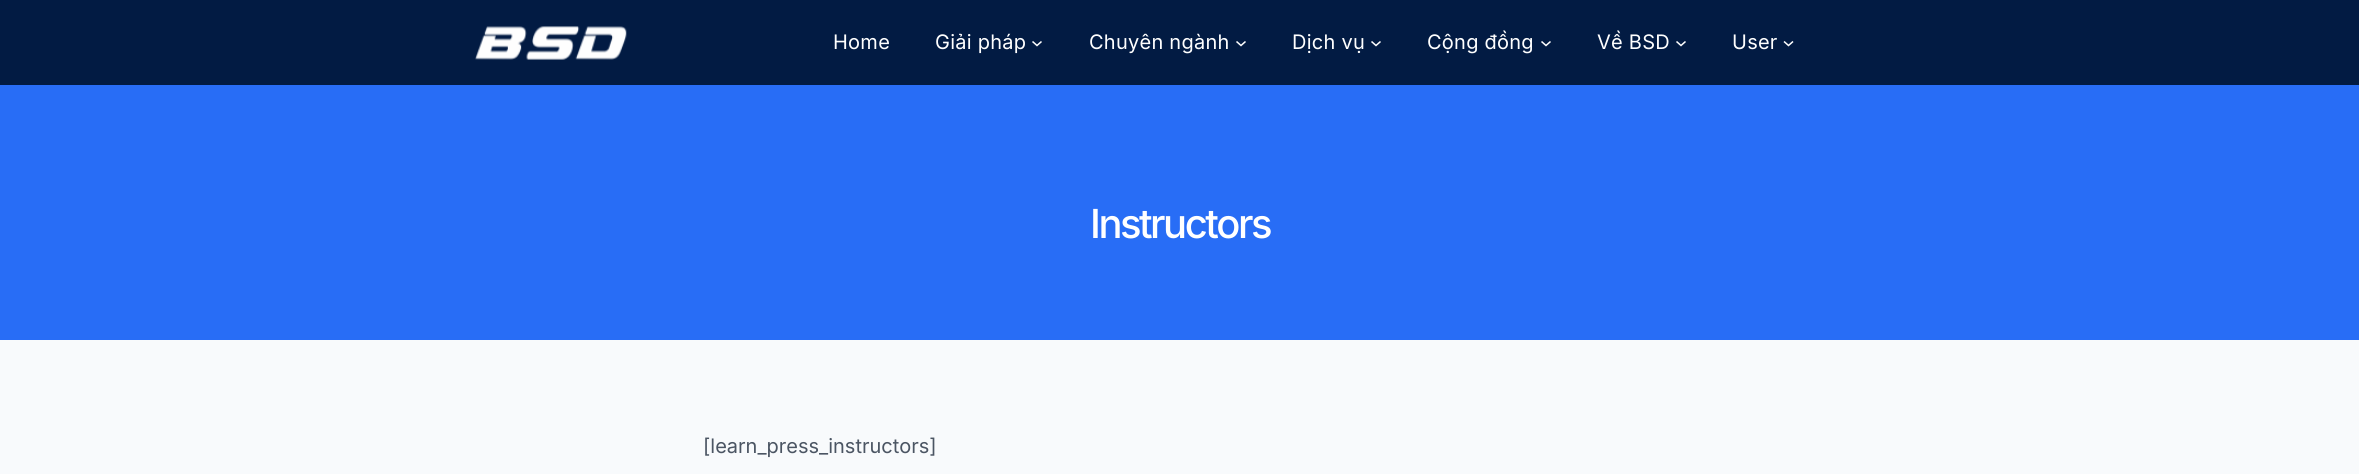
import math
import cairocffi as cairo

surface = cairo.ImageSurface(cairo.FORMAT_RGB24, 2359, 474)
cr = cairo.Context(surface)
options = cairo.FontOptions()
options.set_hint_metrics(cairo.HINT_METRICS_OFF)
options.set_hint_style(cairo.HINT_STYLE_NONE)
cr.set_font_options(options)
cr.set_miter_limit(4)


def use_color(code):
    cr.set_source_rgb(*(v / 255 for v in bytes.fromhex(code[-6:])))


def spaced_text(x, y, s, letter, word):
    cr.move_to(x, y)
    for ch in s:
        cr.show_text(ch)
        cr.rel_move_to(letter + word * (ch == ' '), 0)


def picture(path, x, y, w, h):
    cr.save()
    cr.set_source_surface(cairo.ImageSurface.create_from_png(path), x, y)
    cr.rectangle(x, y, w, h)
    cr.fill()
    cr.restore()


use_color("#f8fafc")
cr.paint()
use_color("#021b43")
cr.rectangle(0, 0, 2359, 85)
cr.fill()
picture("img1.png", 475, 26, 152, 34)
cr.select_font_face("Inter")
cr.set_font_size(20)
use_color("#ffffff")
spaced_text(833, 49, "Home", 0.25, 0)
spaced_text(935, 49, "Giải pháp", 0.25, 0)
cr.new_path()
cr.move_to(1032.5, 41.5)
cr.line_to(1037, 45.5)
cr.line_to(1041.5, 41.5)
cr.set_line_width(1.5)
cr.stroke()
spaced_text(1089, 49, "Chuyên ngành", 0.25, 0)
cr.new_path()
cr.move_to(1236.5, 41.5)
cr.line_to(1241, 45.5)
cr.line_to(1245.5, 41.5)
cr.stroke()
spaced_text(1292, 49, "Dịch vụ", 0.25, 0)
cr.new_path()
cr.move_to(1371.5, 41.5)
cr.line_to(1376, 45.5)
cr.line_to(1380.5, 41.5)
cr.stroke()
spaced_text(1427, 49, "Cộng đồng", 0.25, 0)
cr.new_path()
cr.move_to(1541.5, 41.5)
cr.line_to(1546, 45.5)
cr.line_to(1550.5, 41.5)
cr.stroke()
spaced_text(1597, 49, "Về BSD", 0.25, 0)
cr.new_path()
cr.move_to(1676.5, 41.5)
cr.line_to(1681, 45.5)
cr.line_to(1685.5, 41.5)
cr.stroke()
spaced_text(1732, 49, "User", 0.25, 0)
cr.new_path()
cr.move_to(1784, 41.5)
cr.line_to(1788.5, 45.5)
cr.line_to(1793, 41.5)
cr.stroke()
use_color("#286df6")
cr.rectangle(0, 85, 2359, 255)
cr.fill()
cr.select_font_face("Inter Medium")
cr.set_font_size(40)
use_color("#ffffff")
spaced_text(1090, 238, "Instructors", -2.5, 0)
cr.select_font_face("Inter")
cr.set_font_size(20)
use_color("#4b5563")
cr.move_to(703, 453)
cr.show_text("[learn_press_instructors]")
surface.write_to_png("result.png")
